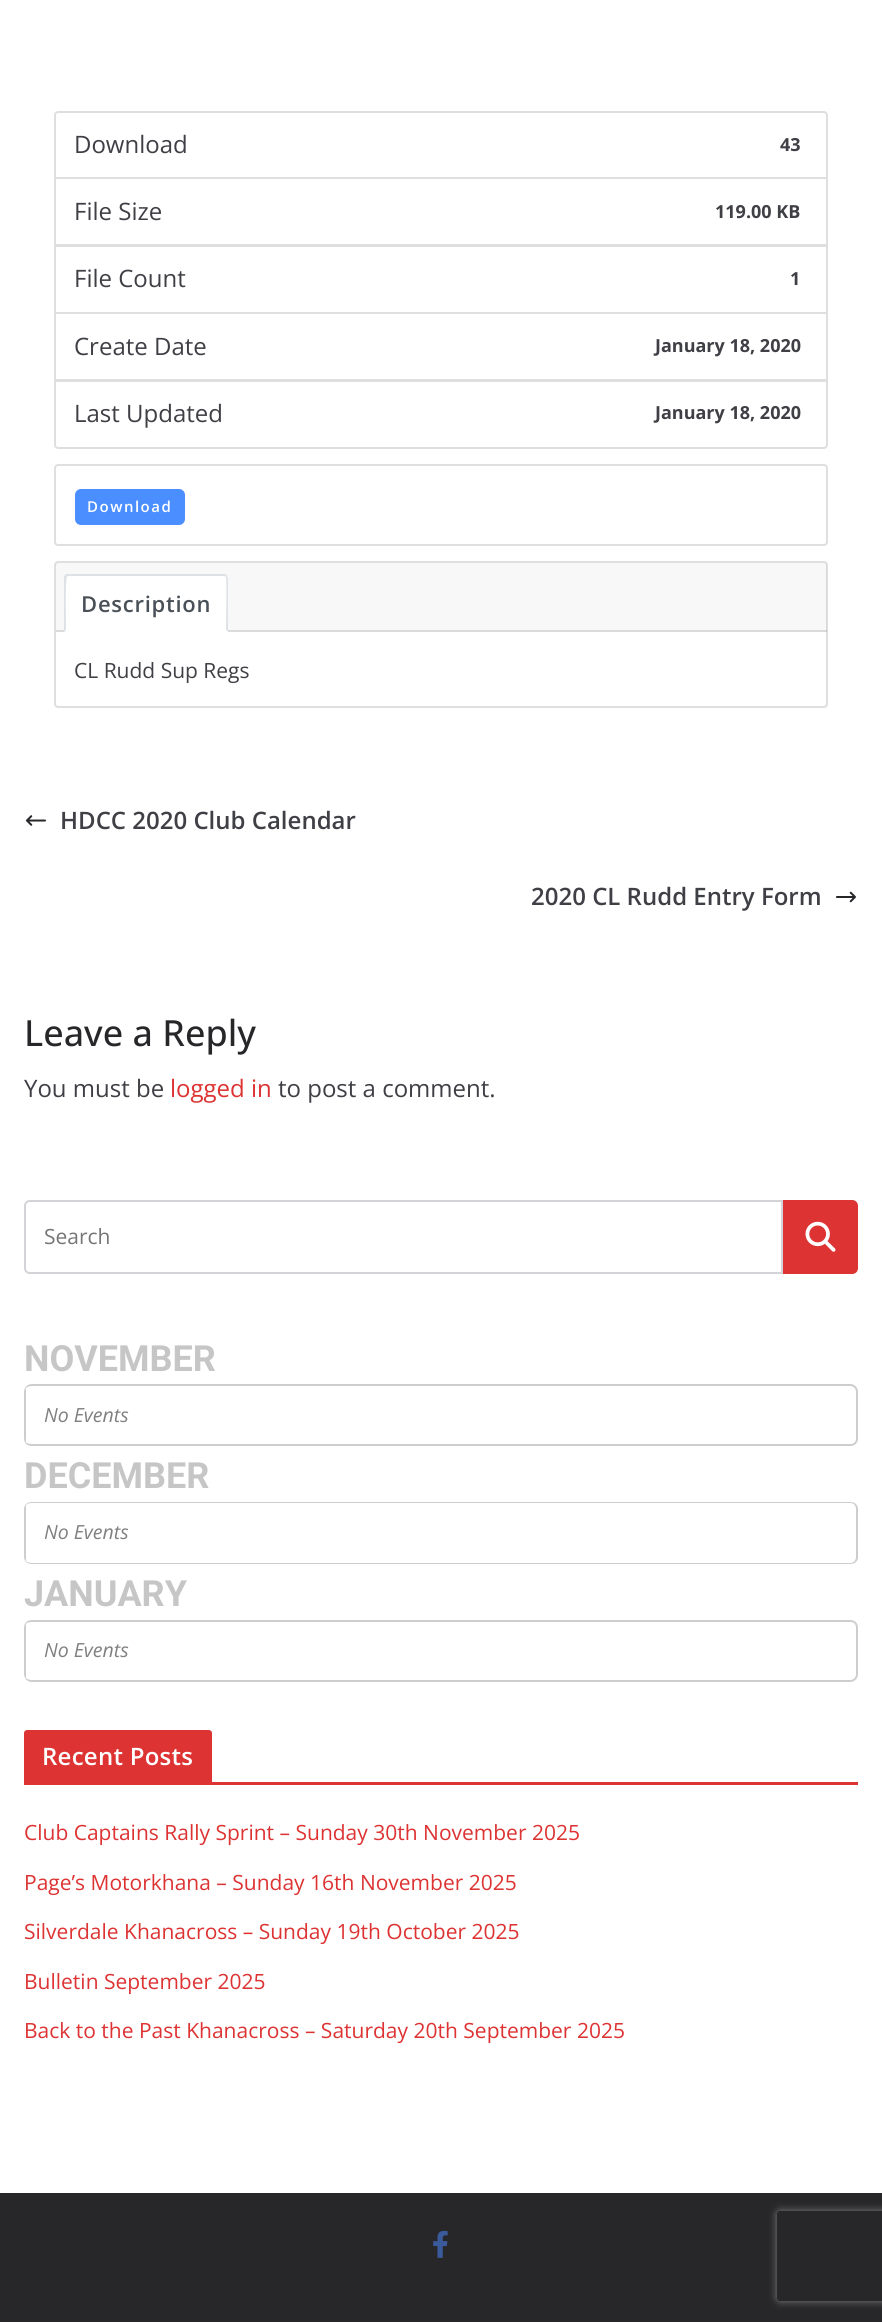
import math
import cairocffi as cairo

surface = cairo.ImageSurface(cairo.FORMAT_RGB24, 882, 2322)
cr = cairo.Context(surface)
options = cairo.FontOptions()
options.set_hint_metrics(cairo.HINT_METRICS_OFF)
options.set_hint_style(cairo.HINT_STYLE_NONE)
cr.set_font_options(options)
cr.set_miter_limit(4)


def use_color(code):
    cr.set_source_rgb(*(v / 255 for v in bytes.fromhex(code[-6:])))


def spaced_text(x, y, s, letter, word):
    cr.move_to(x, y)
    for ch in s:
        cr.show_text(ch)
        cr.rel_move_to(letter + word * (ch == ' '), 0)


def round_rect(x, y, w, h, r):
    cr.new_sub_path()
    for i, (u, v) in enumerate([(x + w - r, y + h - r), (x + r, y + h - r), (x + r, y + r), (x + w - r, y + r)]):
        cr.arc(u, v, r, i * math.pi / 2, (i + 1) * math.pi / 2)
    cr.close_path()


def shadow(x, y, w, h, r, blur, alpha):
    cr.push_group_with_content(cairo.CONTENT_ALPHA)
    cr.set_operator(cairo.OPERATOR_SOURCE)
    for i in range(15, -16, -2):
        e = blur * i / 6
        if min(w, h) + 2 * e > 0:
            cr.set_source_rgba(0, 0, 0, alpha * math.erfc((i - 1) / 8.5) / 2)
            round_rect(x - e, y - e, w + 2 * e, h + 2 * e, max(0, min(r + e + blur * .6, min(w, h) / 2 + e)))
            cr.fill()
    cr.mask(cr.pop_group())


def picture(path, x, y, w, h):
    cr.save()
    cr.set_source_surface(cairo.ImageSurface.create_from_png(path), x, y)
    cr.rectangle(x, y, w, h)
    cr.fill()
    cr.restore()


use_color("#ffffff")
cr.paint()
cr.new_path()
cr.move_to(58, 112)
cr.line_to(824, 112)
cr.curve_to(825.5, 112, 827, 113.5, 827, 115)
cr.line_to(827, 178)
cr.line_to(55, 178)
cr.line_to(55, 115)
cr.curve_to(55, 113.5, 56.5, 112, 58, 112)
cr.close_path()
use_color("#dfdfdf")
cr.stroke()
cr.select_font_face("Open Sans")
cr.set_font_size(24)
use_color("#3f3f46")
cr.move_to(74, 153)
cr.show_text("Download")
cr.select_font_face("Open Sans", cairo.FONT_SLANT_NORMAL, cairo.FONT_WEIGHT_BOLD)
cr.set_font_size(18)
cr.move_to(780, 151)
cr.show_text("43")
cr.rectangle(55, 178, 772, 67)
use_color("#dfdfdf")
cr.stroke()
cr.select_font_face("Open Sans")
cr.set_font_size(24)
use_color("#3f3f46")
cr.move_to(74, 220)
cr.show_text("File Size")
cr.select_font_face("Open Sans", cairo.FONT_SLANT_NORMAL, cairo.FONT_WEIGHT_BOLD)
cr.set_font_size(18)
cr.move_to(715, 218)
cr.show_text("119.00 KB")
cr.rectangle(55, 246, 772, 67)
use_color("#dfdfdf")
cr.stroke()
cr.select_font_face("Open Sans")
cr.set_font_size(24)
use_color("#3f3f46")
cr.move_to(74, 287)
cr.show_text("File Count")
cr.select_font_face("Open Sans", cairo.FONT_SLANT_NORMAL, cairo.FONT_WEIGHT_BOLD)
cr.set_font_size(18)
cr.move_to(790, 285)
cr.show_text("1")
cr.rectangle(55, 313, 772, 67)
use_color("#dfdfdf")
cr.stroke()
cr.select_font_face("Open Sans")
cr.set_font_size(24)
use_color("#3f3f46")
cr.move_to(74, 355)
cr.show_text("Create Date")
cr.select_font_face("Open Sans", cairo.FONT_SLANT_NORMAL, cairo.FONT_WEIGHT_BOLD)
cr.set_font_size(18)
cr.move_to(655, 352)
cr.show_text("January 18, 2020")
use_color("#ffffff")
cr.new_path()
cr.move_to(55, 381)
cr.line_to(827, 381)
cr.line_to(827, 445)
cr.curve_to(827, 446.5, 825.5, 448, 824, 448)
cr.line_to(58, 448)
cr.curve_to(56.5, 448, 55, 446.5, 55, 445)
cr.close_path()
cr.fill_preserve()
use_color("#dfdfdf")
cr.stroke()
cr.select_font_face("Open Sans")
cr.set_font_size(24)
use_color("#3f3f46")
cr.move_to(74, 422)
cr.show_text("Last Updated")
cr.select_font_face("Open Sans", cairo.FONT_SLANT_NORMAL, cairo.FONT_WEIGHT_BOLD)
cr.set_font_size(18)
cr.move_to(655, 419)
cr.show_text("January 18, 2020")
round_rect(55, 465, 772, 80, 3)
use_color("#dfdfdf")
cr.stroke()
use_color("#4a8eff")
round_rect(76, 490, 108, 34, 5)
cr.fill_preserve()
cr.stroke()
cr.select_font_face("Open Sans SemiBold")
cr.set_font_size(15)
use_color("#ffffff")
spaced_text(87, 512, "Download", 1.5, 0)
round_rect(55, 562, 772, 145, 3)
use_color("#dfdfdf")
cr.stroke()
cr.set_source_rgba(0, 0, 0, 0.03)
cr.rectangle(56, 563, 771, 69)
cr.fill()
cr.set_source_rgba(0, 0, 0, 0.12)
cr.rectangle(56, 630, 771, 2)
cr.fill()
use_color("#ffffff")
cr.new_path()
cr.move_to(69, 575)
cr.line_to(224, 575)
cr.curve_to(226, 575, 228, 577, 228, 579)
cr.line_to(228, 632)
cr.line_to(65, 632)
cr.line_to(65, 579)
cr.curve_to(65, 577, 67, 575, 69, 575)
cr.close_path()
cr.fill()
use_color("#dee2e6")
cr.new_path()
cr.move_to(68, 576)
cr.line_to(67, 577)
cr.line_to(65, 575)
cr.line_to(66, 574)
cr.line_to(226, 574)
cr.line_to(227, 576)
cr.line_to(226, 577)
cr.line_to(224, 576)
cr.close_path()
cr.fill()
cr.new_path()
cr.move_to(228, 632)
cr.line_to(228, 578)
cr.line_to(227, 576)
cr.line_to(226, 577)
cr.curve_to(227, 579, 226, 624, 226, 630)
cr.close_path()
cr.fill()
use_color("#ffffff")
cr.new_path()
cr.move_to(228, 632)
cr.line_to(226, 630)
cr.line_to(66, 630)
cr.line_to(64, 632)
cr.close_path()
cr.fill()
use_color("#dee2e6")
cr.new_path()
cr.move_to(64, 632)
cr.line_to(64, 576)
cr.line_to(65, 575)
cr.line_to(67, 577)
cr.curve_to(65, 578, 66, 624, 66, 630)
cr.close_path()
cr.fill()
cr.set_font_size(22)
use_color("#495057")
spaced_text(81, 612, "Description", 0.75, 0)
cr.select_font_face("Open Sans")
cr.set_font_size(21)
use_color("#3f3f46")
cr.move_to(74, 678)
cr.show_text("CL Rudd Sup Regs")
picture("img1.png", 25, 815, 21, 11)
cr.select_font_face("Open Sans SemiBold")
cr.set_font_size(24)
cr.move_to(60, 829)
cr.show_text("HDCC 2020 Club Calendar")
cr.move_to(531, 905)
cr.show_text("2020 CL Rudd Entry Form")
picture("img2.png", 836, 891, 20, 12)
cr.select_font_face("Open Sans Medium")
cr.set_font_size(36)
use_color("#27272a")
cr.move_to(24, 1046)
cr.show_text("Leave a Reply")
cr.select_font_face("Open Sans")
cr.set_font_size(24)
use_color("#3f3f46")
cr.move_to(24, 1097)
cr.show_text("You must be")
use_color("#dd3333")
cr.move_to(170, 1097)
cr.show_text("logged in")
use_color("#3f3f46")
cr.move_to(278, 1097)
cr.show_text("to post a comment.")
cr.new_path()
cr.move_to(30, 1201)
cr.line_to(782, 1201)
cr.line_to(782, 1273)
cr.line_to(30, 1273)
cr.curve_to(27, 1273, 25, 1271, 25, 1268)
cr.line_to(25, 1206)
cr.curve_to(25, 1203, 27, 1201, 30, 1201)
cr.close_path()
use_color("#d4d4d8")
cr.stroke()
cr.set_font_size(21)
use_color("#757575")
cr.move_to(44, 1244)
cr.show_text("Search")
use_color("#dd3333")
cr.new_path()
cr.move_to(784, 1201)
cr.line_to(852, 1201)
cr.curve_to(855, 1201, 857, 1203, 857, 1206)
cr.line_to(857, 1268)
cr.curve_to(857, 1271, 855, 1273, 852, 1273)
cr.line_to(784, 1273)
cr.close_path()
cr.fill_preserve()
cr.stroke()
picture("img3.png", 805, 1221, 31, 31)
cr.select_font_face("Roboto", cairo.FONT_SLANT_NORMAL, cairo.FONT_WEIGHT_BOLD)
cr.set_font_size(36)
use_color("#c6c6c6")
cr.move_to(24, 1371)
cr.show_text("NOVEMBER")
use_color("#cdcdcd")
cr.set_fill_rule(cairo.FILL_RULE_EVEN_ODD)
cr.new_path()
cr.move_to(32, 1384)
cr.line_to(850, 1384)
cr.curve_to(855, 1384, 858, 1388, 858, 1392)
cr.line_to(858, 1438)
cr.curve_to(858, 1443, 855, 1446, 850, 1446)
cr.line_to(32, 1446)
cr.curve_to(27, 1446, 24, 1443, 24, 1438)
cr.line_to(24, 1392)
cr.curve_to(24, 1388, 27, 1384, 32, 1384)
cr.close_path()
cr.move_to(32, 1386)
cr.line_to(850, 1386)
cr.curve_to(854, 1386, 856, 1389, 856, 1392)
cr.line_to(856, 1438)
cr.curve_to(856, 1442, 854, 1444, 850, 1444)
cr.line_to(32, 1444)
cr.curve_to(27, 1444, 24, 1442, 24, 1438)
cr.line_to(24, 1392)
cr.curve_to(24, 1389, 27, 1386, 32, 1386)
cr.close_path()
cr.fill()
cr.set_fill_rule(cairo.FILL_RULE_WINDING)
cr.new_path()
cr.move_to(24, 1392)
cr.line_to(24, 1438)
cr.curve_to(24, 1440, 25, 1442, 26, 1443)
cr.line_to(26, 1388)
cr.curve_to(25, 1389, 24, 1390, 24, 1392)
cr.close_path()
cr.fill()
cr.select_font_face("Open Sans", cairo.FONT_SLANT_ITALIC)
cr.set_font_size(19.5)
use_color("#808080")
cr.move_to(44, 1422)
cr.show_text("No Events")
cr.select_font_face("Roboto", cairo.FONT_SLANT_NORMAL, cairo.FONT_WEIGHT_BOLD)
cr.set_font_size(36)
use_color("#c6c6c6")
cr.move_to(24, 1488)
cr.show_text("DECEMBER")
use_color("#cdcdcd")
cr.set_fill_rule(cairo.FILL_RULE_EVEN_ODD)
cr.new_path()
cr.move_to(32, 1502)
cr.line_to(850, 1502)
cr.curve_to(855, 1502, 858, 1505, 858, 1509)
cr.line_to(858, 1557)
cr.curve_to(858, 1561, 855, 1564, 850, 1564)
cr.line_to(32, 1564)
cr.curve_to(27, 1564, 24, 1561, 24, 1557)
cr.line_to(24, 1509)
cr.curve_to(24, 1505, 27, 1502, 32, 1502)
cr.close_path()
cr.move_to(32, 1503)
cr.line_to(850, 1503)
cr.curve_to(854, 1503, 856, 1506, 856, 1509)
cr.line_to(856, 1557)
cr.curve_to(856, 1560, 854, 1563, 850, 1563)
cr.line_to(32, 1563)
cr.curve_to(27, 1563, 24, 1560, 24, 1557)
cr.line_to(24, 1509)
cr.curve_to(24, 1506, 27, 1503, 32, 1503)
cr.close_path()
cr.fill()
cr.set_fill_rule(cairo.FILL_RULE_WINDING)
cr.new_path()
cr.move_to(24, 1509)
cr.line_to(24, 1557)
cr.curve_to(24, 1559, 25, 1560, 26, 1561)
cr.line_to(26, 1505)
cr.curve_to(25, 1506, 24, 1507, 24, 1509)
cr.close_path()
cr.fill()
cr.select_font_face("Open Sans", cairo.FONT_SLANT_ITALIC)
cr.set_font_size(19.5)
use_color("#808080")
cr.move_to(44, 1539)
cr.show_text("No Events")
cr.select_font_face("Roboto", cairo.FONT_SLANT_NORMAL, cairo.FONT_WEIGHT_BOLD)
cr.set_font_size(36)
use_color("#c6c6c6")
cr.move_to(24, 1606)
cr.show_text("JANUARY")
use_color("#cdcdcd")
cr.set_fill_rule(cairo.FILL_RULE_EVEN_ODD)
cr.new_path()
cr.move_to(32, 1620)
cr.line_to(850, 1620)
cr.curve_to(855, 1620, 858, 1623, 858, 1628)
cr.line_to(858, 1674)
cr.curve_to(858, 1678, 855, 1682, 850, 1682)
cr.line_to(32, 1682)
cr.curve_to(27, 1682, 24, 1678, 24, 1674)
cr.line_to(24, 1628)
cr.curve_to(24, 1623, 27, 1620, 32, 1620)
cr.close_path()
cr.move_to(32, 1622)
cr.line_to(850, 1622)
cr.curve_to(854, 1622, 856, 1624, 856, 1628)
cr.line_to(856, 1674)
cr.curve_to(856, 1677, 854, 1680, 850, 1680)
cr.line_to(32, 1680)
cr.curve_to(27, 1680, 24, 1677, 24, 1674)
cr.line_to(24, 1628)
cr.curve_to(24, 1624, 27, 1622, 32, 1622)
cr.close_path()
cr.fill()
cr.set_fill_rule(cairo.FILL_RULE_WINDING)
cr.new_path()
cr.move_to(24, 1628)
cr.line_to(24, 1674)
cr.curve_to(24, 1676, 25, 1677, 26, 1678)
cr.line_to(26, 1623)
cr.curve_to(25, 1624, 24, 1626, 24, 1628)
cr.close_path()
cr.fill()
cr.select_font_face("Open Sans", cairo.FONT_SLANT_ITALIC)
cr.set_font_size(19.5)
use_color("#808080")
cr.move_to(44, 1657)
cr.show_text("No Events")
use_color("#dd3333")
cr.rectangle(24, 1782, 834, 3)
cr.fill()
cr.new_path()
cr.move_to(27, 1730)
cr.line_to(209, 1730)
cr.curve_to(210.5, 1730, 212, 1731.5, 212, 1733)
cr.line_to(212, 1782)
cr.line_to(24, 1782)
cr.line_to(24, 1733)
cr.curve_to(24, 1731.5, 25.5, 1730, 27, 1730)
cr.close_path()
cr.fill()
cr.select_font_face("Open Sans SemiBold")
cr.set_font_size(24)
use_color("#ffffff")
spaced_text(42, 1765, "Recent Posts", 0.25, 0)
cr.select_font_face("Open Sans")
cr.set_font_size(21)
use_color("#dd3333")
cr.move_to(24, 1840)
cr.show_text("Club Captains Rally Sprint – Sunday 30th November 2025")
cr.move_to(24, 1890)
cr.show_text("Page’s Motorkhana – Sunday 16th November 2025")
cr.move_to(24, 1939)
cr.show_text("Silverdale Khanacross – Sunday 19th October 2025")
cr.move_to(24, 1989)
cr.show_text("Bulletin September 2025")
cr.move_to(24, 2038)
cr.show_text("Back to the Past Khanacross – Saturday 20th September 2025")
use_color("#27272a")
cr.rectangle(0, 2193, 882, 129)
cr.fill()
picture("img4.png", 433, 2230, 15, 28)
cr.save()
cr.set_fill_rule(cairo.FILL_RULE_EVEN_ODD)
cr.new_path()
cr.move_to(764, 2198)
cr.line_to(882, 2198)
cr.line_to(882, 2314)
cr.line_to(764, 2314)
cr.close_path()
cr.move_to(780, 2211)
cr.line_to(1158, 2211)
cr.curve_to(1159.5, 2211, 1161, 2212.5, 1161, 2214)
cr.line_to(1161, 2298)
cr.curve_to(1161, 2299.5, 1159.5, 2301, 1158, 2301)
cr.line_to(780, 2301)
cr.curve_to(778.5, 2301, 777, 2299.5, 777, 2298)
cr.line_to(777, 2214)
cr.curve_to(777, 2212.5, 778.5, 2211, 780, 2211)
cr.close_path()
cr.clip()
use_color("#808080")
shadow(777, 2211, 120, 90, 3, 4, 1)
cr.restore()
surface.write_to_png("result.png")
